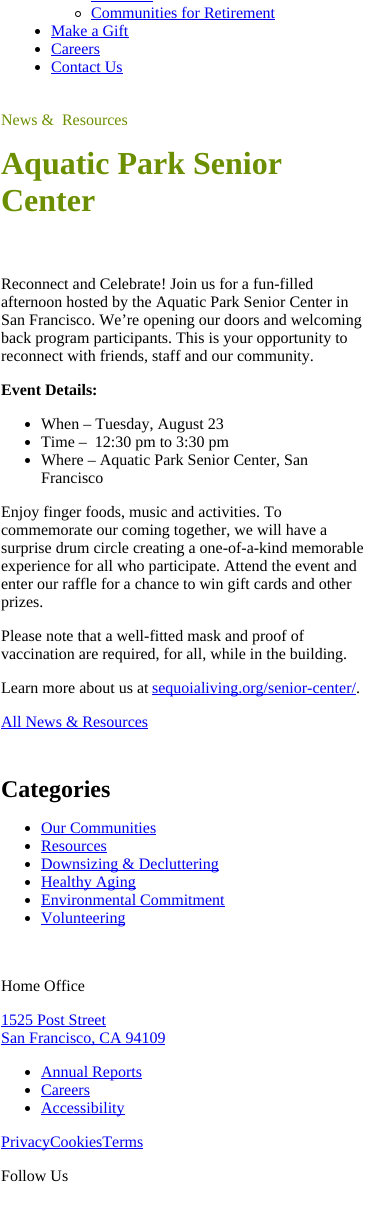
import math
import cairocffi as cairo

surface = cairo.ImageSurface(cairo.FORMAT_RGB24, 367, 1232)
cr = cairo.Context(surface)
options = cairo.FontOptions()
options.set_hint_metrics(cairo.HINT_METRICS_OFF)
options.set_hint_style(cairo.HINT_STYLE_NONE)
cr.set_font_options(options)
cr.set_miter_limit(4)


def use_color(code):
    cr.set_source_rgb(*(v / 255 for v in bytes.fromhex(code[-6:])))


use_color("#ffffff")
cr.paint()
use_color("#0000ee")
cr.rectangle(91, 1, 62, 1)
cr.fill()
cr.arc(78, 14, 2.5, 0, 2 * math.pi)
use_color("#000000")
cr.set_line_width(1)
cr.stroke()
cr.select_font_face("Liberation Serif")
cr.set_font_size(16)
use_color("#0000ee")
cr.move_to(91, 18)
cr.show_text("Communities for Retirement")
cr.rectangle(91, 19, 184, 1)
cr.fill()
use_color("#000000")
cr.arc(37.5, 31.5, 2.5, 0, 2 * math.pi)
cr.fill()
use_color("#0000ee")
cr.move_to(51, 36)
cr.show_text("Make a Gift")
cr.rectangle(51, 37, 78, 1)
cr.fill()
use_color("#000000")
cr.arc(37.5, 49.5, 2.5, 0, 2 * math.pi)
cr.fill()
use_color("#0000ee")
cr.move_to(51, 54)
cr.show_text("Careers")
cr.rectangle(51, 55, 49, 1)
cr.fill()
use_color("#000000")
cr.arc(37.5, 67.5, 2.5, 0, 2 * math.pi)
cr.fill()
use_color("#0000ee")
cr.move_to(51, 72)
cr.show_text("Contact Us")
cr.rectangle(51, 73, 72, 1)
cr.fill()
use_color("#6b8f00")
cr.move_to(1, 125)
cr.show_text("News &  Resources")
cr.select_font_face("Liberation Serif", cairo.FONT_SLANT_NORMAL, cairo.FONT_WEIGHT_BOLD)
cr.set_font_size(32)
cr.move_to(1, 174)
cr.show_text("Aquatic Park Senior")
cr.move_to(1, 211)
cr.show_text("Center")
cr.select_font_face("Liberation Serif")
cr.set_font_size(16)
use_color("#000000")
cr.move_to(1, 289)
cr.show_text("Reconnect and Celebrate! Join us for a fun-filled")
cr.move_to(1, 307)
cr.show_text("afternoon hosted by the Aquatic Park Senior Center in")
cr.move_to(1, 325)
cr.show_text("San Francisco. We’re opening our doors and welcoming")
cr.move_to(1, 343)
cr.show_text("back program participants. This is your opportunity to")
cr.move_to(1, 361)
cr.show_text("reconnect with friends, staff and our community.")
cr.select_font_face("Liberation Serif", cairo.FONT_SLANT_NORMAL, cairo.FONT_WEIGHT_BOLD)
cr.move_to(1, 395)
cr.show_text("Event Details:")
cr.new_path()
cr.arc(27.5, 424.5, 2.5, 0, 2 * math.pi)
cr.fill()
cr.select_font_face("Liberation Serif")
cr.move_to(41, 429)
cr.show_text("When – Tuesday, August 23")
cr.new_path()
cr.arc(27.5, 442.5, 2.5, 0, 2 * math.pi)
cr.fill()
cr.move_to(41, 447)
cr.show_text("Time –  12:30 pm to 3:30 pm")
cr.new_path()
cr.arc(27.5, 460.5, 2.5, 0, 2 * math.pi)
cr.fill()
cr.move_to(41, 465)
cr.show_text("Where – Aquatic Park Senior Center, San")
cr.move_to(41, 483)
cr.show_text("Francisco")
cr.move_to(1, 517)
cr.show_text("Enjoy finger foods, music and activities. To")
cr.move_to(1, 535)
cr.show_text("commemorate our coming together, we will have a")
cr.move_to(1, 553)
cr.show_text("surprise drum circle creating a one-of-a-kind memorable")
cr.move_to(1, 571)
cr.show_text("experience for all who participate. Attend the event and")
cr.move_to(1, 589)
cr.show_text("enter our raffle for a chance to win gift cards and other")
cr.move_to(1, 607)
cr.show_text("prizes.")
cr.move_to(1, 641)
cr.show_text("Please note that a well-fitted mask and proof of")
cr.move_to(1, 659)
cr.show_text("vaccination are required, for all, while in the building.")
cr.move_to(1, 693)
cr.show_text("Learn more about us at")
use_color("#0000ee")
cr.rectangle(152, 694, 204, 1)
cr.fill()
cr.move_to(152, 693)
cr.show_text("sequoialiving.org/senior-center/")
use_color("#000000")
cr.move_to(356, 693)
cr.show_text(".")
use_color("#0000ee")
cr.move_to(1, 727)
cr.show_text("All News & Resources")
cr.rectangle(1, 728, 147, 1)
cr.fill()
cr.select_font_face("Liberation Serif", cairo.FONT_SLANT_NORMAL, cairo.FONT_WEIGHT_BOLD)
cr.set_font_size(24)
use_color("#000000")
cr.move_to(1, 797)
cr.show_text("Categories")
cr.new_path()
cr.arc(27.5, 828.5, 2.5, 0, 2 * math.pi)
cr.fill()
cr.select_font_face("Liberation Serif")
cr.set_font_size(16)
use_color("#0000ee")
cr.move_to(41, 833)
cr.show_text("Our Communities")
cr.rectangle(41, 834, 115, 1)
cr.fill()
use_color("#000000")
cr.arc(27.5, 846.5, 2.5, 0, 2 * math.pi)
cr.fill()
use_color("#0000ee")
cr.move_to(41, 851)
cr.show_text("Resources")
cr.rectangle(41, 852, 66, 1)
cr.fill()
use_color("#000000")
cr.arc(27.5, 864.5, 2.5, 0, 2 * math.pi)
cr.fill()
use_color("#0000ee")
cr.rectangle(41, 870, 178, 1)
cr.fill()
cr.move_to(41, 869)
cr.show_text("Downsizing & Decluttering")
use_color("#000000")
cr.new_path()
cr.arc(27.5, 882.5, 2.5, 0, 2 * math.pi)
cr.fill()
use_color("#0000ee")
cr.rectangle(41, 888, 95, 1)
cr.fill()
cr.move_to(41, 887)
cr.show_text("Healthy Aging")
use_color("#000000")
cr.new_path()
cr.arc(27.5, 900.5, 2.5, 0, 2 * math.pi)
cr.fill()
use_color("#0000ee")
cr.move_to(41, 905)
cr.show_text("Environmental Commitment")
cr.rectangle(41, 906, 184, 1)
cr.fill()
use_color("#000000")
cr.arc(27.5, 918.5, 2.5, 0, 2 * math.pi)
cr.fill()
use_color("#0000ee")
cr.rectangle(41, 924, 84, 1)
cr.fill()
cr.move_to(41, 923)
cr.show_text("Volunteering")
use_color("#000000")
cr.move_to(1, 991)
cr.show_text("Home Office")
use_color("#0000ee")
cr.move_to(1, 1025)
cr.show_text("1525 Post Street")
cr.rectangle(1, 1026, 105, 1)
cr.fill()
cr.rectangle(1, 1044, 164, 1)
cr.fill()
cr.move_to(1, 1043)
cr.show_text("San Francisco, CA 94109")
use_color("#000000")
cr.new_path()
cr.arc(27.5, 1072.5, 2.5, 0, 2 * math.pi)
cr.fill()
use_color("#0000ee")
cr.rectangle(41, 1078, 101, 1)
cr.fill()
cr.move_to(41, 1077)
cr.show_text("Annual Reports")
use_color("#000000")
cr.new_path()
cr.arc(27.5, 1090.5, 2.5, 0, 2 * math.pi)
cr.fill()
use_color("#0000ee")
cr.move_to(41, 1095)
cr.show_text("Careers")
cr.rectangle(41, 1096, 49, 1)
cr.fill()
use_color("#000000")
cr.arc(27.5, 1108.5, 2.5, 0, 2 * math.pi)
cr.fill()
use_color("#0000ee")
cr.rectangle(41, 1114, 84, 1)
cr.fill()
cr.move_to(41, 1113)
cr.show_text("Accessibility")
cr.rectangle(1, 1148, 142, 1)
cr.fill()
cr.move_to(1, 1147)
cr.show_text("PrivacyCookiesTerms")
use_color("#000000")
cr.move_to(1, 1181)
cr.show_text("Follow Us")
surface.write_to_png("result.png")
